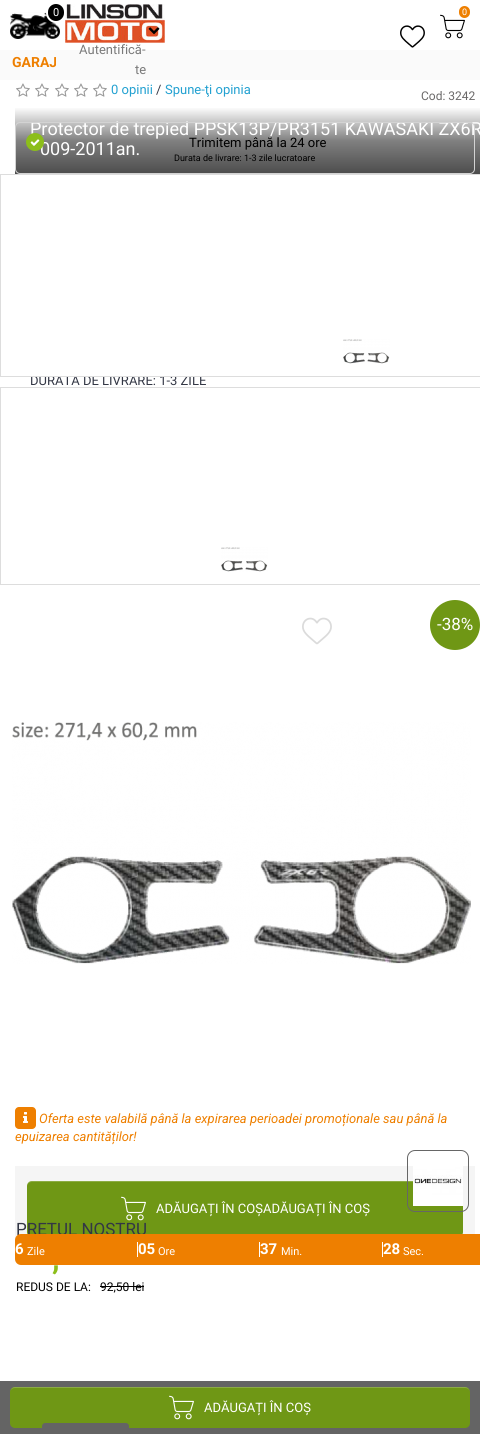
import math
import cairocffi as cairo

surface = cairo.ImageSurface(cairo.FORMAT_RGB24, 480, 1434)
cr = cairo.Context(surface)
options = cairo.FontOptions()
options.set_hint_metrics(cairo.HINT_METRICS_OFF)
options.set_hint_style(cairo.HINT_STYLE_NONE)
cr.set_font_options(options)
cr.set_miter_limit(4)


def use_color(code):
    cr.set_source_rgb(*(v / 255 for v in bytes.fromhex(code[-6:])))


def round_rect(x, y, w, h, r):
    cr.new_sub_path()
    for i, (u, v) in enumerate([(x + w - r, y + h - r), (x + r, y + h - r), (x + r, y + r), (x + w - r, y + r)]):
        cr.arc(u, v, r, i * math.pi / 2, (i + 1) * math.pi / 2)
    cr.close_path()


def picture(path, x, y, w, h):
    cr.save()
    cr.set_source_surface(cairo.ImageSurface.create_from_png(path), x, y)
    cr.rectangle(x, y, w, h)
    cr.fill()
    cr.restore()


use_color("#ffffff")
cr.paint()
picture("img1.png", 10, 12, 50, 27)
picture("img2.png", 65, 4, 100, 39)
use_color("#000000")
round_rect(47, 3, 18, 19, 9)
cr.fill_preserve()
use_color("#ffffff")
cr.stroke()
cr.select_font_face("Roboto")
cr.set_font_size(11)
cr.move_to(53, 16)
cr.show_text("0")
use_color("#fafafa")
cr.rectangle(0, 50, 480, 30)
cr.fill()
cr.select_font_face("Roboto", cairo.FONT_SLANT_NORMAL, cairo.FONT_WEIGHT_BOLD)
cr.set_font_size(14)
use_color("#ee7f00")
cr.move_to(12, 67)
cr.show_text("GARAJ")
picture("img3.png", 440, 14, 25, 25)
round_rect(459, 6, 11, 12, 5.5)
cr.fill()
cr.select_font_face("Roboto")
cr.set_font_size(9)
use_color("#ffffff")
cr.move_to(462, 15)
cr.show_text("0")
picture("img4.png", 400, 25, 25, 23)
picture("img5.png", 148, 27, 12, 8)
cr.set_font_size(13)
use_color("#7a7a7a")
cr.move_to(79, 54)
cr.show_text("Autentifică-")
cr.move_to(135, 74)
cr.show_text("te")
picture("img6.png", 16, 83, 14, 14)
picture("img6.png", 35, 83, 14, 14)
picture("img6.png", 55, 83, 14, 14)
picture("img6.png", 74, 83, 14, 14)
picture("img6.png", 93, 83, 14, 14)
use_color("#23a1d1")
cr.move_to(111, 94)
cr.show_text("0 opinii")
use_color("#333745")
cr.move_to(156, 94)
cr.show_text("/")
use_color("#23a1d1")
cr.move_to(165, 94)
cr.show_text("Spune-ţi opinia")
cr.set_font_size(12)
use_color("#6a6868")
cr.move_to(421, 100)
cr.show_text("Cod: 3242")
gradient = cairo.LinearGradient(260, 174, 260, 74)
gradient.add_color_stop_rgba(0, 0, 0, 0, 0.7)
gradient.add_color_stop_rgba(0.33, 0, 0, 0, 0.5)
gradient.add_color_stop_rgba(0.67, 0, 0, 0, 0)
gradient.add_color_stop_rgba(1, 1, 0, 0, 0)
cr.set_source(gradient)
cr.rectangle(15, 108, 465, 66)
cr.fill()
cr.set_font_size(18)
use_color("#ffffff")
cr.move_to(30, 135)
cr.show_text("Protector de trepied PPSK13P/PR3151 KAWASAKI ZX6R")
cr.move_to(40, 155)
cr.show_text("009-2011an.")
round_rect(15.5, 122.5, 459, 51, 4.5)
use_color("#d3d3d3")
cr.set_line_width(1)
cr.stroke()
use_color("#8cbe1a")
cr.arc(35, 142, 9, 0, 2 * math.pi)
cr.fill()
picture("img7.png", 30, 139, 10, 7)
cr.set_font_size(13)
use_color("#000000")
cr.move_to(189, 147)
cr.show_text("Trimitem până la 24 ore")
cr.set_font_size(9)
cr.move_to(174, 161)
cr.show_text("Durata de livrare: 1-3 zile lucratoare")
cr.set_font_size(13)
use_color("#333745")
cr.move_to(30, 385)
cr.show_text("DURATA DE LIVRARE: 1-3 ZILE")
use_color("#ffffff")
cr.rectangle(31, 375, 175, 1)
cr.fill()
cr.rectangle(0.5, 174.5, 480, 202)
use_color("#dddddd")
cr.stroke()
picture("img8.png", 343, 339, 47, 25)
cr.rectangle(0.5, 387.5, 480, 197)
cr.stroke()
picture("img8.png", 221, 547, 47, 25)
picture("img9.png", 302, 617, 30, 28)
use_color("#6f9715")
cr.arc(455, 625, 25, 0, 2 * math.pi)
cr.fill()
cr.set_font_size(17)
use_color("#ffffff")
cr.move_to(437, 630)
cr.show_text("-38%")
picture("img10.png", 12, 722, 459, 242)
use_color("#ee7f00")
round_rect(15, 1107, 21, 22, 4)
cr.fill()
picture("img11.png", 23, 1112, 5, 11)
cr.select_font_face("Roboto", cairo.FONT_SLANT_ITALIC)
cr.set_font_size(13)
cr.move_to(39, 1123)
cr.show_text("Oferta este valabilă până la expirarea perioadei promoționale sau până la")
cr.move_to(15, 1141)
cr.show_text("epuizarea cantităților!")
use_color("#f5f5f5")
cr.rectangle(15, 1166, 460, 74)
cr.fill()
use_color("#6f9715")
round_rect(27, 1181, 436, 56, 5)
cr.fill()
cr.select_font_face("Roboto")
cr.set_font_size(17)
use_color("#333745")
cr.move_to(16, 1235)
cr.show_text("PREȚUL NOSTRU")
use_color("#ee7f00")
round_rect(15, 1234, 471, 31, 6)
cr.fill()
use_color("#ffffff")
cr.rectangle(137, 1242, 1, 15)
cr.fill()
cr.select_font_face("Roboto", cairo.FONT_SLANT_NORMAL, cairo.FONT_WEIGHT_BOLD)
cr.set_font_size(15)
cr.move_to(15, 1254)
cr.show_text("6")
cr.select_font_face("Roboto")
cr.set_font_size(11)
cr.move_to(27, 1255)
cr.show_text("Zile")
cr.rectangle(259, 1242, 1, 15)
cr.fill()
cr.select_font_face("Roboto", cairo.FONT_SLANT_NORMAL, cairo.FONT_WEIGHT_BOLD)
cr.set_font_size(15)
cr.move_to(138, 1254)
cr.show_text("05")
cr.select_font_face("Roboto")
cr.set_font_size(11)
cr.move_to(158, 1255)
cr.show_text("Ore")
cr.rectangle(382, 1242, 1, 15)
cr.fill()
cr.select_font_face("Roboto", cairo.FONT_SLANT_NORMAL, cairo.FONT_WEIGHT_BOLD)
cr.set_font_size(15)
cr.move_to(260, 1254)
cr.show_text("37")
cr.select_font_face("Roboto")
cr.set_font_size(11)
cr.move_to(281, 1255)
cr.show_text("Min.")
cr.select_font_face("Roboto", cairo.FONT_SLANT_NORMAL, cairo.FONT_WEIGHT_BOLD)
cr.set_font_size(15)
cr.move_to(383, 1254)
cr.show_text("28")
cr.select_font_face("Roboto")
cr.set_font_size(11)
cr.move_to(403, 1255)
cr.show_text("Sec.")
cr.set_source_rgba(1, 1, 1, 0.2)
cr.new_path()
cr.move_to(32, 1182)
cr.line_to(458, 1182)
cr.curve_to(461, 1182, 463, 1184, 463, 1187)
cr.curve_to(463, 1184, 461, 1181, 458, 1181)
cr.line_to(32, 1181)
cr.curve_to(29, 1181, 27, 1184, 27, 1187)
cr.curve_to(27, 1184, 29, 1182, 32, 1182)
cr.close_path()
cr.fill()
round_rect(407.5, 1150.5, 61, 61, 7.5)
use_color("#666666")
cr.stroke()
picture("img12.png", 413, 1166, 50, 40)
cr.select_font_face("Roboto", cairo.FONT_SLANT_NORMAL, cairo.FONT_WEIGHT_BOLD)
cr.set_font_size(31)
use_color("#8cbe1a")
cr.move_to(52, 1269)
cr.show_text(",")
cr.select_font_face("Roboto")
cr.set_font_size(12)
use_color("#000000")
cr.move_to(16, 1291)
cr.show_text("REDUS DE LA:")
cr.move_to(100, 1291)
cr.show_text("92,50 lei")
cr.rectangle(100, 1286, 44, 1)
cr.fill()
picture("img13.png", 121, 1196, 25, 25)
cr.set_font_size(13)
use_color("#ffffff")
cr.move_to(156, 1213)
cr.show_text("ADĂUGAȚI ÎN COȘADĂUGAȚI ÎN COȘ")
use_color("#646464")
cr.rectangle(0, 1381, 480, 53)
cr.fill()
use_color("#6f9715")
round_rect(10, 1387, 460, 41, 5)
cr.fill()
cr.set_source_rgba(1, 1, 1, 0.2)
cr.new_path()
cr.move_to(15, 1388)
cr.line_to(465, 1388)
cr.curve_to(468, 1388, 470, 1390, 470, 1393)
cr.curve_to(470, 1390, 468, 1387, 465, 1387)
cr.line_to(15, 1387)
cr.curve_to(12, 1387, 10, 1390, 10, 1393)
cr.curve_to(10, 1390, 12, 1388, 15, 1388)
cr.close_path()
cr.fill()
picture("img13.png", 169, 1395, 25, 25)
use_color("#ffffff")
cr.move_to(204, 1412)
cr.show_text("ADĂUGAȚI ÎN COȘ")
use_color("#646464")
cr.new_path()
cr.move_to(45, 1423)
cr.line_to(126, 1423)
cr.curve_to(127.5, 1423, 129, 1424.5, 129, 1426)
cr.line_to(129, 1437)
cr.line_to(42, 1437)
cr.line_to(42, 1426)
cr.curve_to(42, 1424.5, 43.5, 1423, 45, 1423)
cr.close_path()
cr.fill()
surface.write_to_png("result.png")
